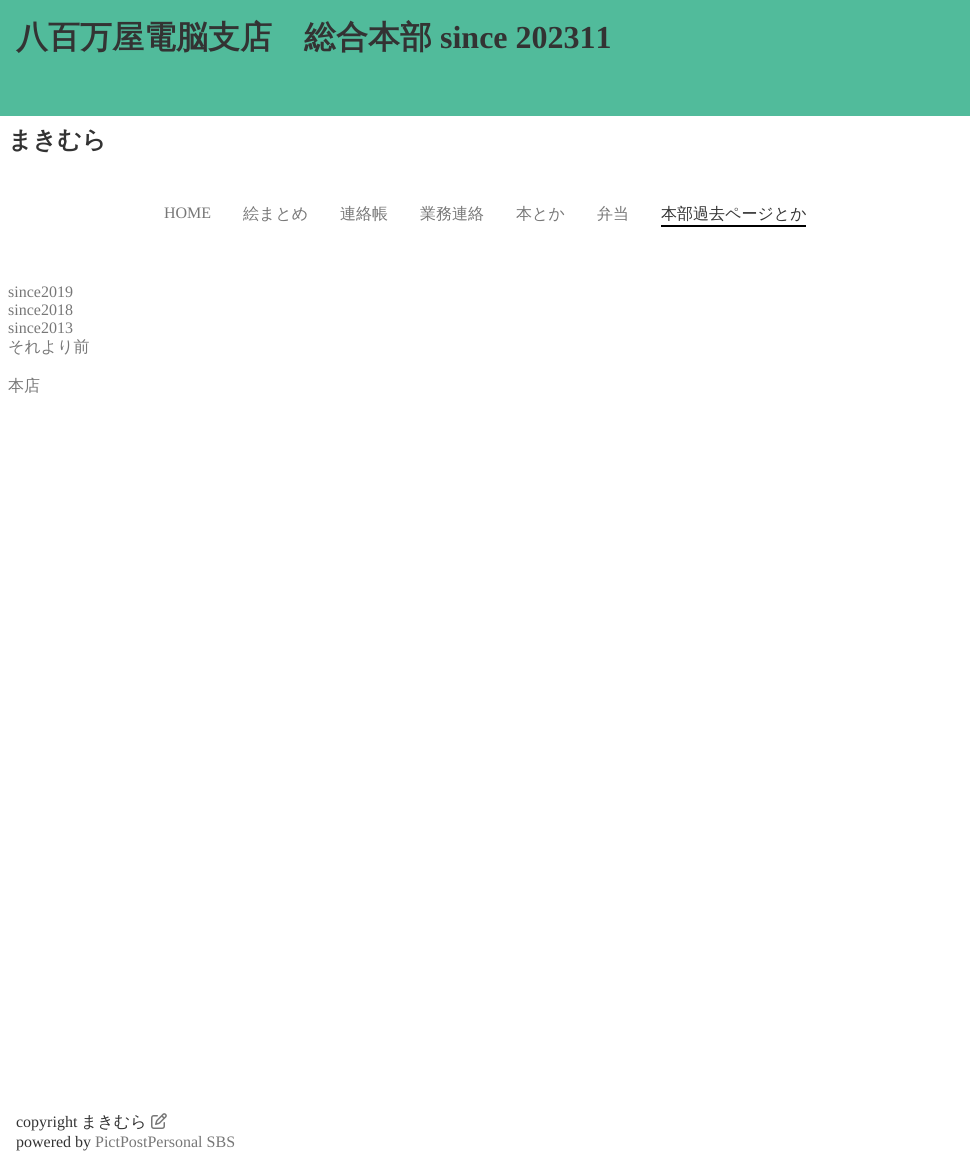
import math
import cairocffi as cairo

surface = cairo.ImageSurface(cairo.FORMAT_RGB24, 970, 1160)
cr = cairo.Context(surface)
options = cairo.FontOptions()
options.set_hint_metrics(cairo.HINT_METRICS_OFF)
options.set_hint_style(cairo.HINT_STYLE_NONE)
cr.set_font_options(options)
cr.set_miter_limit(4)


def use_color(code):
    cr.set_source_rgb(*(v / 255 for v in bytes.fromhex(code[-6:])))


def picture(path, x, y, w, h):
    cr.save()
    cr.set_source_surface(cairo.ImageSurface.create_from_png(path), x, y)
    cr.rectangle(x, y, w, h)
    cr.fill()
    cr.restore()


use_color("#ffffff")
cr.paint()
use_color("#51bb9b")
cr.rectangle(0, 0, 970, 116)
cr.fill()
cr.select_font_face("WenQuanYi Zen Hei", cairo.FONT_SLANT_NORMAL, cairo.FONT_WEIGHT_BOLD)
cr.set_font_size(32)
use_color("#333333")
cr.move_to(16, 48)
cr.show_text("八百万屋電脳支店　総合本部")
cr.select_font_face("Liberation Serif", cairo.FONT_SLANT_NORMAL, cairo.FONT_WEIGHT_BOLD)
cr.move_to(440, 48)
cr.show_text("since 202311")
cr.select_font_face("WenQuanYi Zen Hei", cairo.FONT_SLANT_NORMAL, cairo.FONT_WEIGHT_BOLD)
cr.set_font_size(24)
cr.move_to(8, 148)
cr.show_text("まきむら")
cr.select_font_face("Liberation Serif")
cr.set_font_size(16)
use_color("#777777")
cr.move_to(164, 218)
cr.show_text("HOME")
cr.select_font_face("WenQuanYi Zen Hei Medium")
cr.move_to(243, 219)
cr.show_text("絵まとめ")
cr.move_to(340, 219)
cr.show_text("連絡帳")
cr.move_to(420, 219)
cr.show_text("業務連絡")
cr.move_to(516, 219)
cr.show_text("本とか")
cr.move_to(597, 219)
cr.show_text("弁当")
use_color("#000000")
cr.rectangle(661, 225, 145, 2)
cr.fill()
use_color("#333333")
cr.move_to(661, 219)
cr.show_text("本部過去ページとか")
cr.select_font_face("Liberation Serif")
use_color("#777777")
cr.move_to(8, 297)
cr.show_text("since2019")
cr.move_to(8, 315)
cr.show_text("since2018")
cr.move_to(8, 333)
cr.show_text("since2013")
cr.select_font_face("WenQuanYi Zen Hei Medium")
cr.move_to(8, 352)
cr.show_text("それより前")
cr.move_to(8, 391)
cr.show_text("本店")
cr.select_font_face("Liberation Serif")
use_color("#333333")
cr.move_to(16, 1127)
cr.show_text("copyright")
cr.select_font_face("WenQuanYi Zen Hei Medium")
cr.move_to(81, 1127)
cr.show_text("まきむら")
picture("img1.png", 151, 1113, 16, 16)
cr.select_font_face("Liberation Serif")
cr.move_to(16, 1147)
cr.show_text("powered by")
use_color("#777777")
cr.move_to(95, 1147)
cr.show_text("PictPostPersonal SBS")
surface.write_to_png("result.png")
